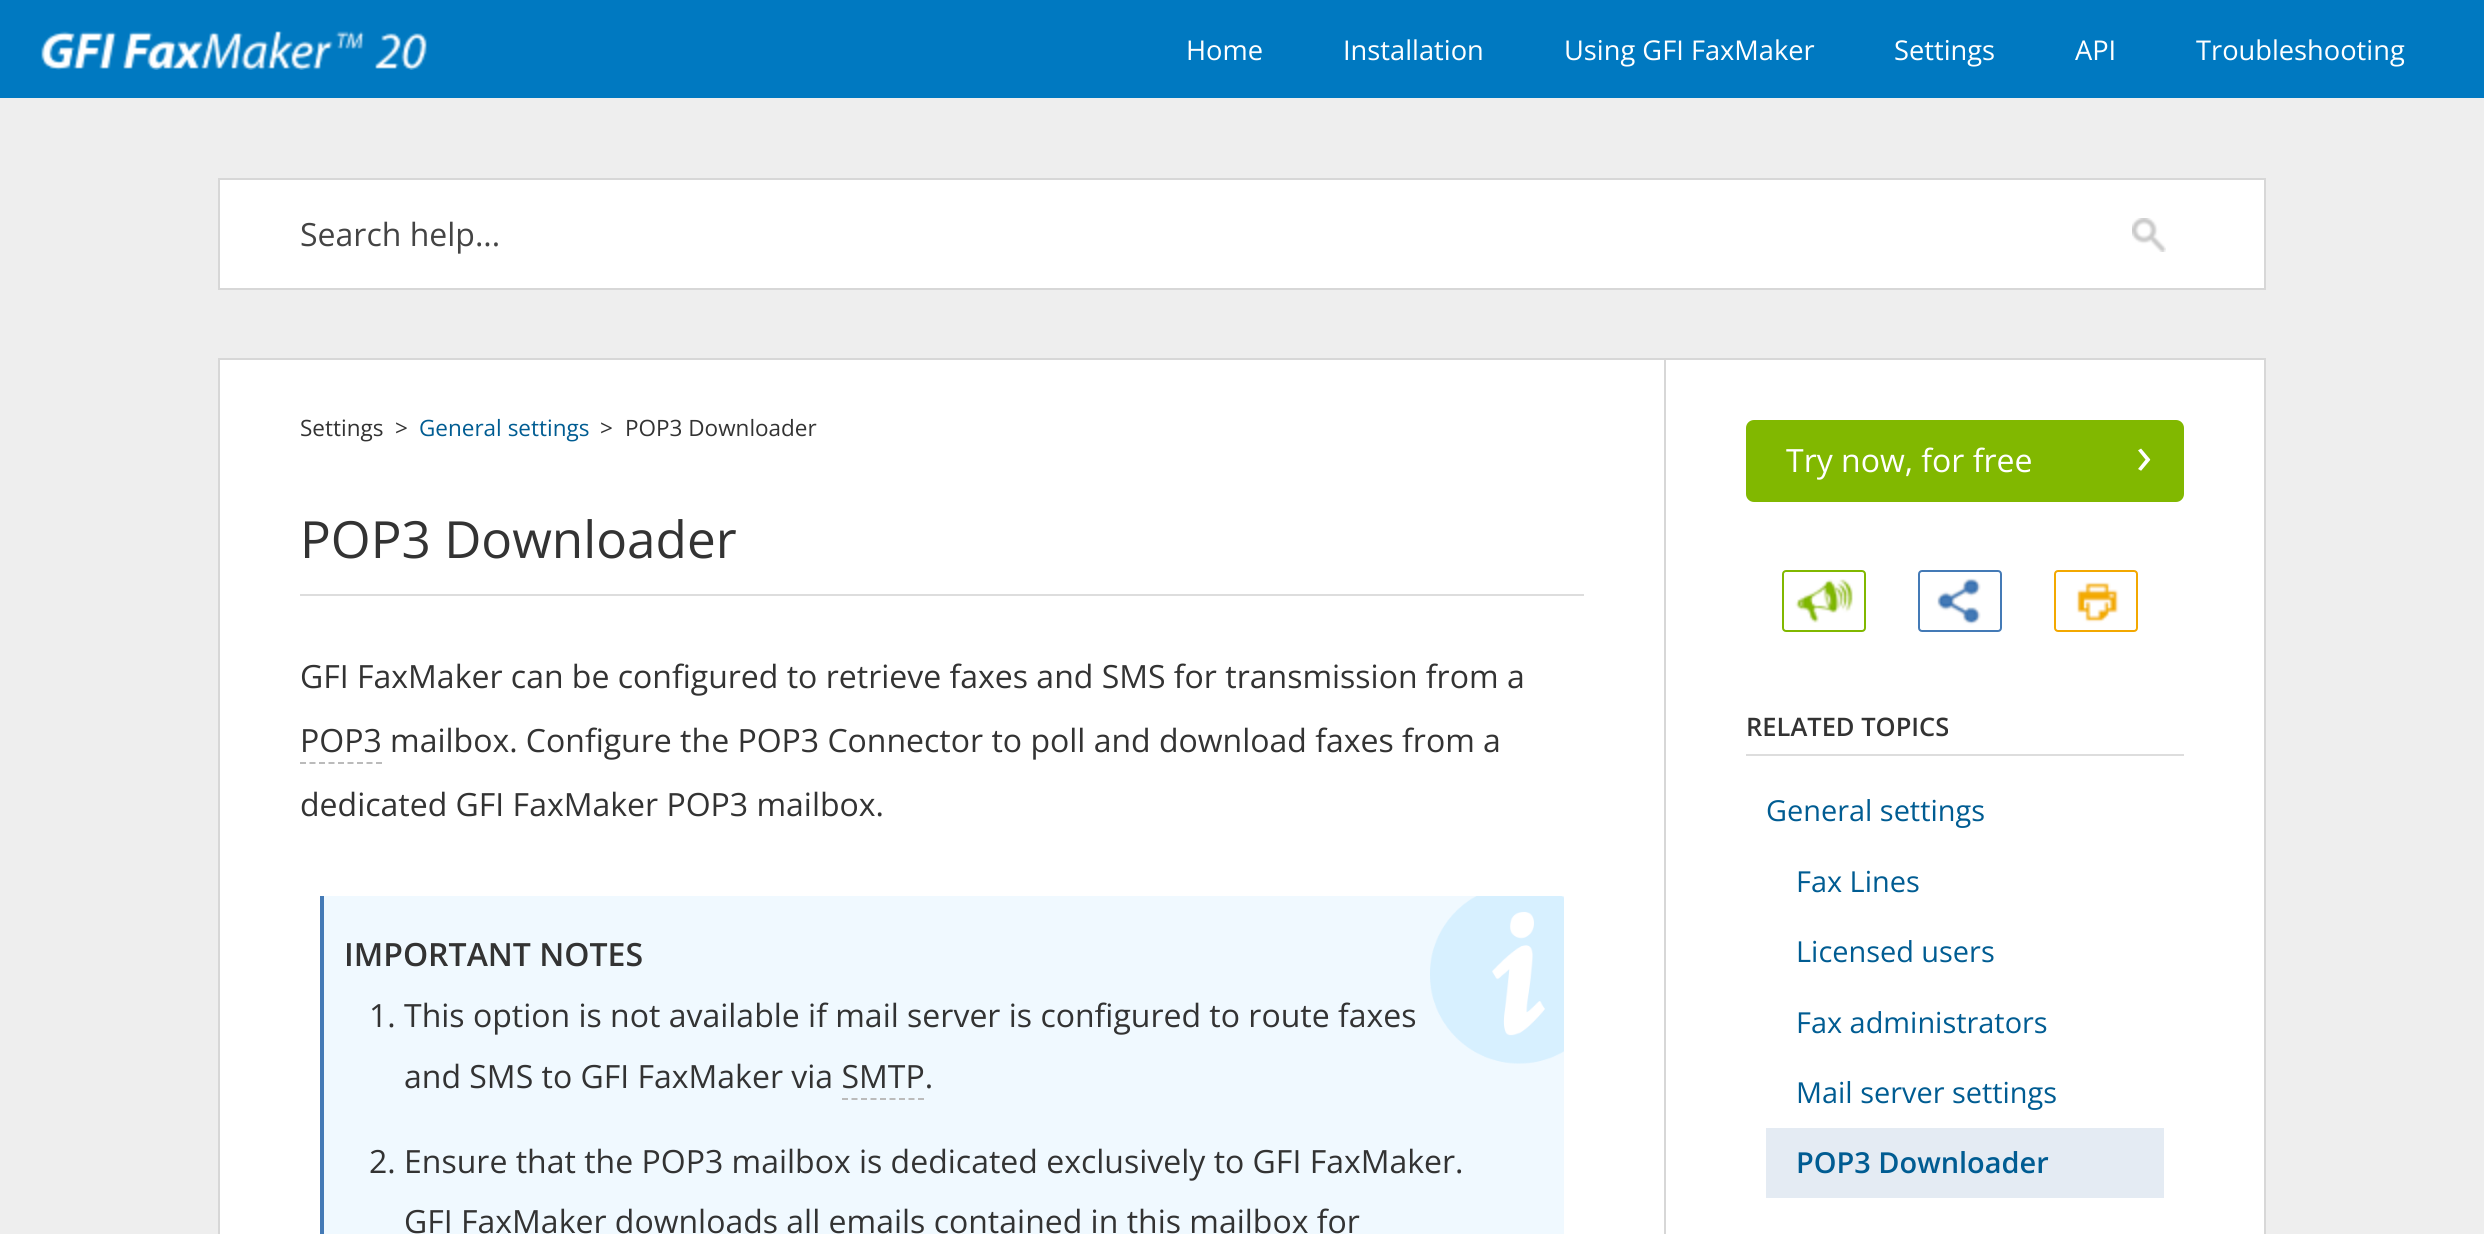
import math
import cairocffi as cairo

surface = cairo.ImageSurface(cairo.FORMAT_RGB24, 2484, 1234)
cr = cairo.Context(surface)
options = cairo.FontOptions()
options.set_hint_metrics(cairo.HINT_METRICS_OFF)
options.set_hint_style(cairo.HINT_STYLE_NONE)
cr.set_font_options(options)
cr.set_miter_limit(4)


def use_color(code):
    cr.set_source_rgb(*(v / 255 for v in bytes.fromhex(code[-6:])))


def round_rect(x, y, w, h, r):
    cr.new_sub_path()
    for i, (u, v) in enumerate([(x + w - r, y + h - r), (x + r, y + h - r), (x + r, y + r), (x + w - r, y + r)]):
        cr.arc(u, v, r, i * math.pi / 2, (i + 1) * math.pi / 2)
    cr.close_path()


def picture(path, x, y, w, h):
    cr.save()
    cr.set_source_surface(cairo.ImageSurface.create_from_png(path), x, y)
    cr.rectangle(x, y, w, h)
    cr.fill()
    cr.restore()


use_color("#eeeeee")
cr.paint()
use_color("#0079c1")
cr.rectangle(0, 0, 2484, 98)
cr.fill()
picture("img1.png", 41, 31, 386, 39)
cr.select_font_face("Open Sans")
cr.set_font_size(27.25)
use_color("#ffffff")
cr.move_to(1186, 60)
cr.show_text("Home")
cr.move_to(1343, 60)
cr.show_text("Installation")
cr.move_to(1564, 60)
cr.show_text("Using GFI FaxMaker")
cr.move_to(1894, 60)
cr.show_text("Settings")
cr.move_to(2075, 60)
cr.show_text("API")
cr.move_to(2196, 60)
cr.show_text("Troubleshooting")
cr.rectangle(219, 179, 2046, 110)
cr.fill_preserve()
use_color("#d7d7d7")
cr.stroke()
cr.set_font_size(32)
use_color("#444444")
cr.move_to(300, 246)
cr.show_text("Search help...")
picture("img2.png", 2132, 218, 34, 34)
use_color("#ffffff")
cr.rectangle(219, 359, 2046, 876)
cr.fill_preserve()
use_color("#d7d7d7")
cr.stroke()
cr.set_font_size(22.5)
use_color("#333333")
cr.move_to(300, 436)
cr.show_text("Settings")
cr.move_to(395, 436)
cr.show_text(">")
use_color("#005c92")
cr.move_to(419, 436)
cr.show_text("General settings")
use_color("#333333")
cr.move_to(600, 436)
cr.show_text(">")
cr.move_to(625, 436)
cr.show_text("POP3 Downloader")
use_color("#dddddd")
cr.rectangle(300, 594, 1284, 2)
cr.fill()
cr.set_font_size(51.25)
use_color("#333333")
cr.move_to(300, 558)
cr.show_text("POP3 Downloader")
cr.set_font_size(32)
cr.move_to(300, 688)
cr.show_text("GFI FaxMaker can be configured to retrieve faxes and SMS for transmission from a")
cr.move_to(300, 752)
cr.show_text("POP3 mailbox. Configure the POP3 Connector to poll and download faxes from a")
cr.new_path()
cr.move_to(300, 763)
cr.line_to(382, 763)
use_color("#bbbbbb")
cr.set_dash([6, 3.5])
cr.stroke()
use_color("#333333")
cr.move_to(300, 816)
cr.show_text("dedicated GFI FaxMaker POP3 mailbox.")
use_color("#f0f9ff")
cr.rectangle(324, 896, 1240, 338)
cr.fill()
picture("img3.png", 1430, 896, 134, 168)
use_color("#447ab6")
cr.rectangle(320, 896, 4, 338)
cr.fill()
cr.select_font_face("Open Sans SemiBold")
use_color("#333333")
cr.move_to(344, 966)
cr.show_text("IMPORTANT NOTES")
cr.select_font_face("Open Sans")
cr.move_to(369, 1027)
cr.show_text("1. This option is not available if mail server is configured to route faxes")
cr.move_to(404, 1088)
cr.show_text("and SMS to GFI FaxMaker via SMTP.")
cr.new_path()
cr.move_to(842, 1099)
cr.line_to(924, 1099)
use_color("#bbbbbb")
cr.stroke()
use_color("#333333")
cr.move_to(369, 1173)
cr.show_text("2. Ensure that the POP3 mailbox is dedicated exclusively to GFI FaxMaker.")
cr.move_to(404, 1233)
cr.show_text("GFI FaxMaker downloads all emails contained in this mailbox for")
use_color("#d7d7d7")
cr.rectangle(1664, 360, 2, 874)
cr.fill()
use_color("#81b800")
round_rect(1746, 420, 438, 82, 8)
cr.fill()
use_color("#ffffff")
cr.move_to(1786, 472)
cr.show_text("Try now, for free")
cr.set_font_size(54)
cr.move_to(2136, 474)
cr.show_text("›")
picture("img4.png", 1795, 579, 58, 44)
round_rect(1783, 571, 82, 60, 3)
use_color("#81b800")
cr.set_dash([])
cr.stroke()
picture("img5.png", 1937, 578, 44, 47)
round_rect(1919, 571, 82, 60, 3)
use_color("#447ab6")
cr.stroke()
picture("img6.png", 2076, 582, 43, 41)
round_rect(2055, 571, 82, 60, 3)
use_color("#f3a800")
cr.stroke()
use_color("#dddddd")
cr.rectangle(1746, 754, 438, 2)
cr.fill()
cr.select_font_face("Open Sans SemiBold")
cr.set_font_size(25.5)
use_color("#333333")
cr.move_to(1746, 736)
cr.show_text("RELATED TOPICS")
cr.select_font_face("Open Sans")
cr.set_font_size(28.9)
use_color("#005c92")
cr.move_to(1766, 821)
cr.show_text("General settings")
cr.move_to(1796, 892)
cr.show_text("Fax Lines")
cr.move_to(1796, 962)
cr.show_text("Licensed users")
cr.move_to(1796, 1033)
cr.show_text("Fax administrators")
cr.move_to(1796, 1103)
cr.show_text("Mail server settings")
use_color("#e4ebf3")
cr.rectangle(1766, 1128, 398, 70)
cr.fill()
cr.select_font_face("Open Sans SemiBold")
use_color("#005c92")
cr.move_to(1796, 1173)
cr.show_text("POP3 Downloader")
surface.write_to_png("result.png")
